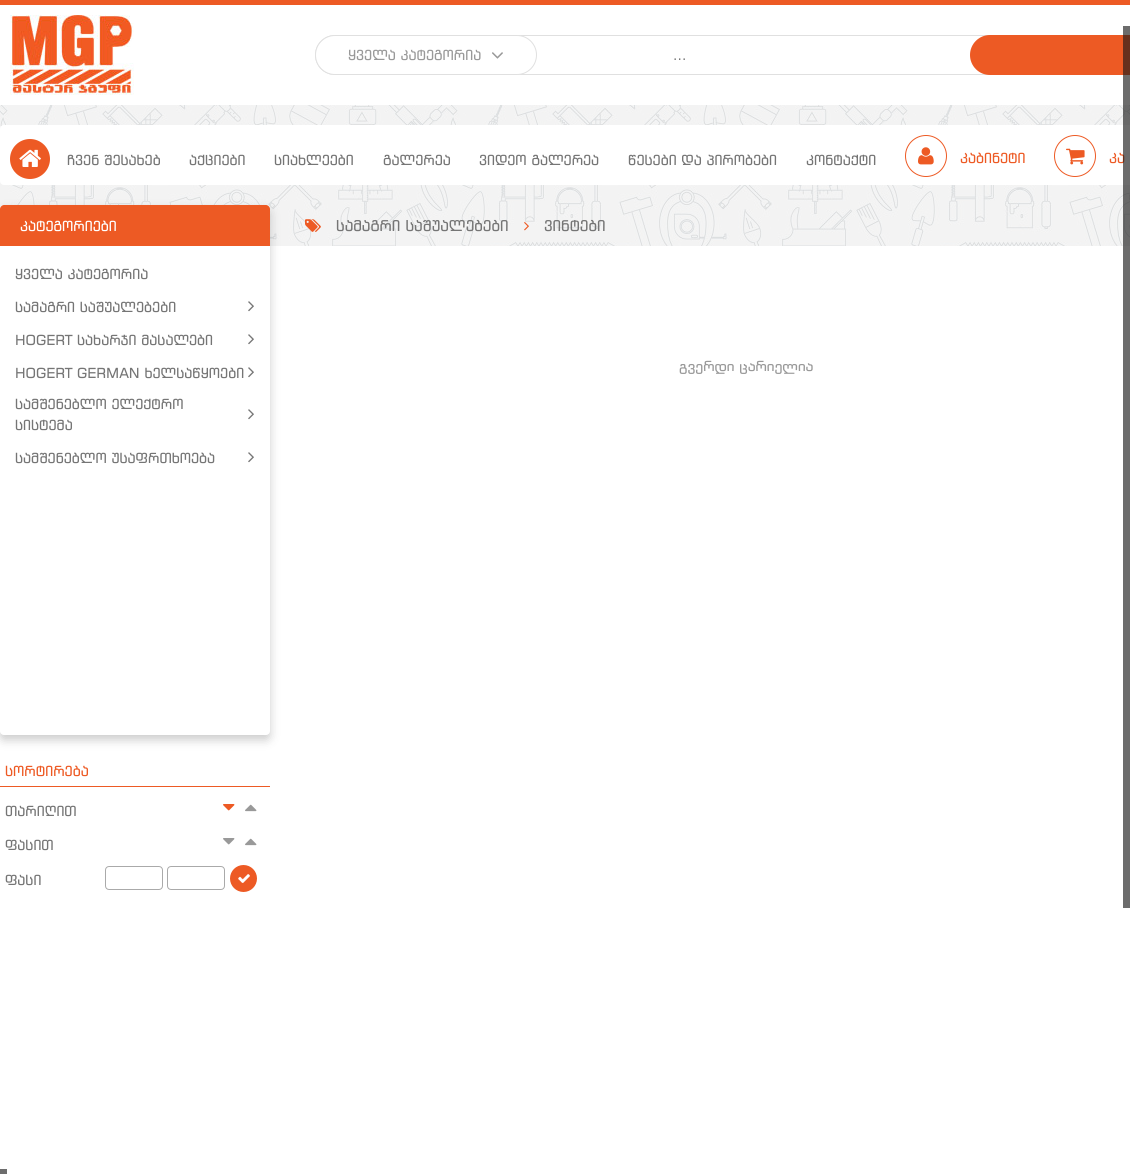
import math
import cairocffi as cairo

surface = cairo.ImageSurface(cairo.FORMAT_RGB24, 1130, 1176)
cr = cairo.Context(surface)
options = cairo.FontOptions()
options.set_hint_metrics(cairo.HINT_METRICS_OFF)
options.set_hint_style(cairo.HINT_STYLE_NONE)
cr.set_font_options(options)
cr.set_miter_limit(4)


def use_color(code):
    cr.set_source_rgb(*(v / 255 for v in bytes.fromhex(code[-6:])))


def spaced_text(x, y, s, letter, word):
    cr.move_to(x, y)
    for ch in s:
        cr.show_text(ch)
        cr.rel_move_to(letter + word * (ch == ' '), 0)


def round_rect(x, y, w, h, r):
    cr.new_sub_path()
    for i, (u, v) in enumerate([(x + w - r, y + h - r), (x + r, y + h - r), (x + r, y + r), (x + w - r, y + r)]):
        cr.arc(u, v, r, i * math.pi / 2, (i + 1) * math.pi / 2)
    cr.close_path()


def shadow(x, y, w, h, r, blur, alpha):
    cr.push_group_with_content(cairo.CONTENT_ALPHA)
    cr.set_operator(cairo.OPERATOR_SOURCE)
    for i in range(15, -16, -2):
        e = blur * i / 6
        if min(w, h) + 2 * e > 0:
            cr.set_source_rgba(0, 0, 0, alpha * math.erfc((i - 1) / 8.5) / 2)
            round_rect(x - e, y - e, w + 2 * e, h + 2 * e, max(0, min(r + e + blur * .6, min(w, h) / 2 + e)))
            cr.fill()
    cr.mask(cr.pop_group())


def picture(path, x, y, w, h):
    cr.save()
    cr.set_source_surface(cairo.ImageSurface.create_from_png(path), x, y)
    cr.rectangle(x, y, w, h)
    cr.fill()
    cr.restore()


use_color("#ffffff")
cr.paint()
use_color("#ed5a24")
cr.rectangle(0, 0, 1130, 5)
cr.fill()
picture("img1.png", 10, 15, 124, 80)
round_rect(315.5, 35.5, 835, 39, 19.5)
use_color("#e0e0e0")
cr.set_line_width(1)
cr.stroke()
use_color("#ffffff")
round_rect(315.5, 35.5, 221, 39, 19.5)
cr.fill_preserve()
use_color("#e0e0e0")
cr.stroke()
cr.select_font_face("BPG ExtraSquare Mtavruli")
cr.set_font_size(14)
use_color("#999999")
cr.move_to(348, 60)
cr.show_text("ყველა კატეგორია")
picture("img2.png", 492, 52, 11, 7)
cr.set_font_size(13.25)
use_color("#757575")
spaced_text(566, 60, "ᲡᲐᲫᲘᲔᲑᲝ ᲡᲘᲢᲧᲕᲐ...", 0, 45)
use_color("#ed5a24")
round_rect(970, 35, 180, 40, 20)
cr.fill()
use_color("#f3f3f3")
cr.rectangle(0, 105, 1130, 141)
cr.fill()
picture("img3.png", 0, 105, 1130, 141)
use_color("#ffffff")
round_rect(0, 125, 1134, 60, 4)
cr.fill()
use_color("#ed5a24")
cr.arc(30, 159, 20, 0, 2 * math.pi)
cr.fill()
picture("img4.png", 19, 149, 22, 18)
cr.set_font_size(14)
use_color("#757575")
cr.move_to(67, 165)
cr.show_text("ჩვენ შესახებ")
cr.move_to(189, 165)
cr.show_text("აქციები")
cr.move_to(274, 165)
cr.show_text("სიახლეები")
cr.move_to(383, 165)
cr.show_text("გალერეა")
cr.move_to(479, 165)
cr.show_text("ვიდეო გალერეა")
cr.move_to(628, 165)
cr.show_text("წესები და პირობები")
cr.move_to(806, 165)
cr.show_text("კონტაქტი")
cr.new_path()
cr.arc(926, 156, 20.5, 0, 2 * math.pi)
use_color("#ed5a24")
cr.stroke()
picture("img5.png", 918, 147, 16, 18)
cr.move_to(960, 163)
cr.show_text("კაბინეტი")
cr.new_path()
cr.arc(1075, 156, 20.5, 0, 2 * math.pi)
cr.stroke()
picture("img6.png", 1066, 148, 19, 17)
cr.move_to(1109, 163)
cr.show_text("კა")
use_color("#000000")
shadow(0, 210, 270, 530, 4, 5, 0.2)
use_color("#ffffff")
round_rect(0, 205, 270, 530, 4)
cr.fill()
use_color("#ed5a24")
cr.new_path()
cr.move_to(4, 205)
cr.line_to(266, 205)
cr.curve_to(268, 205, 270, 207, 270, 209)
cr.line_to(270, 246)
cr.line_to(0, 246)
cr.line_to(0, 209)
cr.curve_to(0, 207, 2, 205, 4, 205)
cr.close_path()
cr.fill()
use_color("#ffffff")
cr.move_to(20, 231)
cr.show_text("კატეგორიები")
use_color("#757575")
cr.move_to(15, 279)
cr.show_text("ყველა კატეგორია")
cr.move_to(15, 312)
cr.show_text("სამაგრი საშუალებები")
picture("img7.png", 248, 301, 6, 11)
cr.move_to(15, 345)
cr.show_text("HOGERT სახარჯი მასალები")
picture("img7.png", 248, 334, 6, 11)
cr.move_to(15, 378)
cr.show_text("HOGERT GERMAN ხელსაწყოები")
picture("img7.png", 248, 367, 6, 11)
cr.move_to(15, 409)
cr.show_text("სამშენებლო ელექტრო")
cr.move_to(15, 430)
cr.show_text("სისტემა")
picture("img7.png", 248, 409, 6, 11)
cr.move_to(15, 463)
cr.show_text("სამშენებლო უსაფრთხოება")
picture("img7.png", 248, 452, 6, 11)
use_color("#ed5a24")
cr.rectangle(0, 786, 270, 1)
cr.fill()
cr.move_to(5, 776)
cr.show_text("სორტირება")
use_color("#757575")
cr.move_to(5, 816)
cr.show_text("თარიღით")
picture("img8.png", 223, 804, 12, 7)
picture("img9.png", 245, 804, 12, 8)
cr.move_to(5, 850)
cr.show_text("ფასით")
picture("img10.png", 223, 838, 12, 7)
picture("img9.png", 245, 838, 12, 8)
cr.move_to(5, 885)
cr.show_text("ფასი")
round_rect(105.5, 866.5, 57, 23, 3.5)
use_color("#aaaaaa")
cr.stroke()
round_rect(167.5, 866.5, 57, 23, 3.5)
cr.stroke()
use_color("#ed5a24")
cr.arc(243.5, 878.5, 13.5, 0, 2 * math.pi)
cr.fill()
picture("img11.png", 238, 874, 12, 9)
picture("img12.png", 305, 219, 16, 13)
cr.set_font_size(15)
use_color("#757575")
cr.move_to(336, 231)
cr.show_text("სამაგრი საშუალებები")
picture("img13.png", 524, 222, 5, 9)
cr.move_to(544, 231)
cr.show_text("ვინტები")
cr.select_font_face("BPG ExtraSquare")
cr.set_font_size(14)
use_color("#999999")
cr.move_to(679, 371)
cr.show_text("გვერდი ცარიელია")
cr.set_source_rgba(0.102, 0.102, 0.102, 0.64)
cr.rectangle(1123, 26, 7, 882)
cr.fill()
use_color("#6d6d6d")
cr.rectangle(0, 1169, 7, 5)
cr.fill()
surface.write_to_png("result.png")
